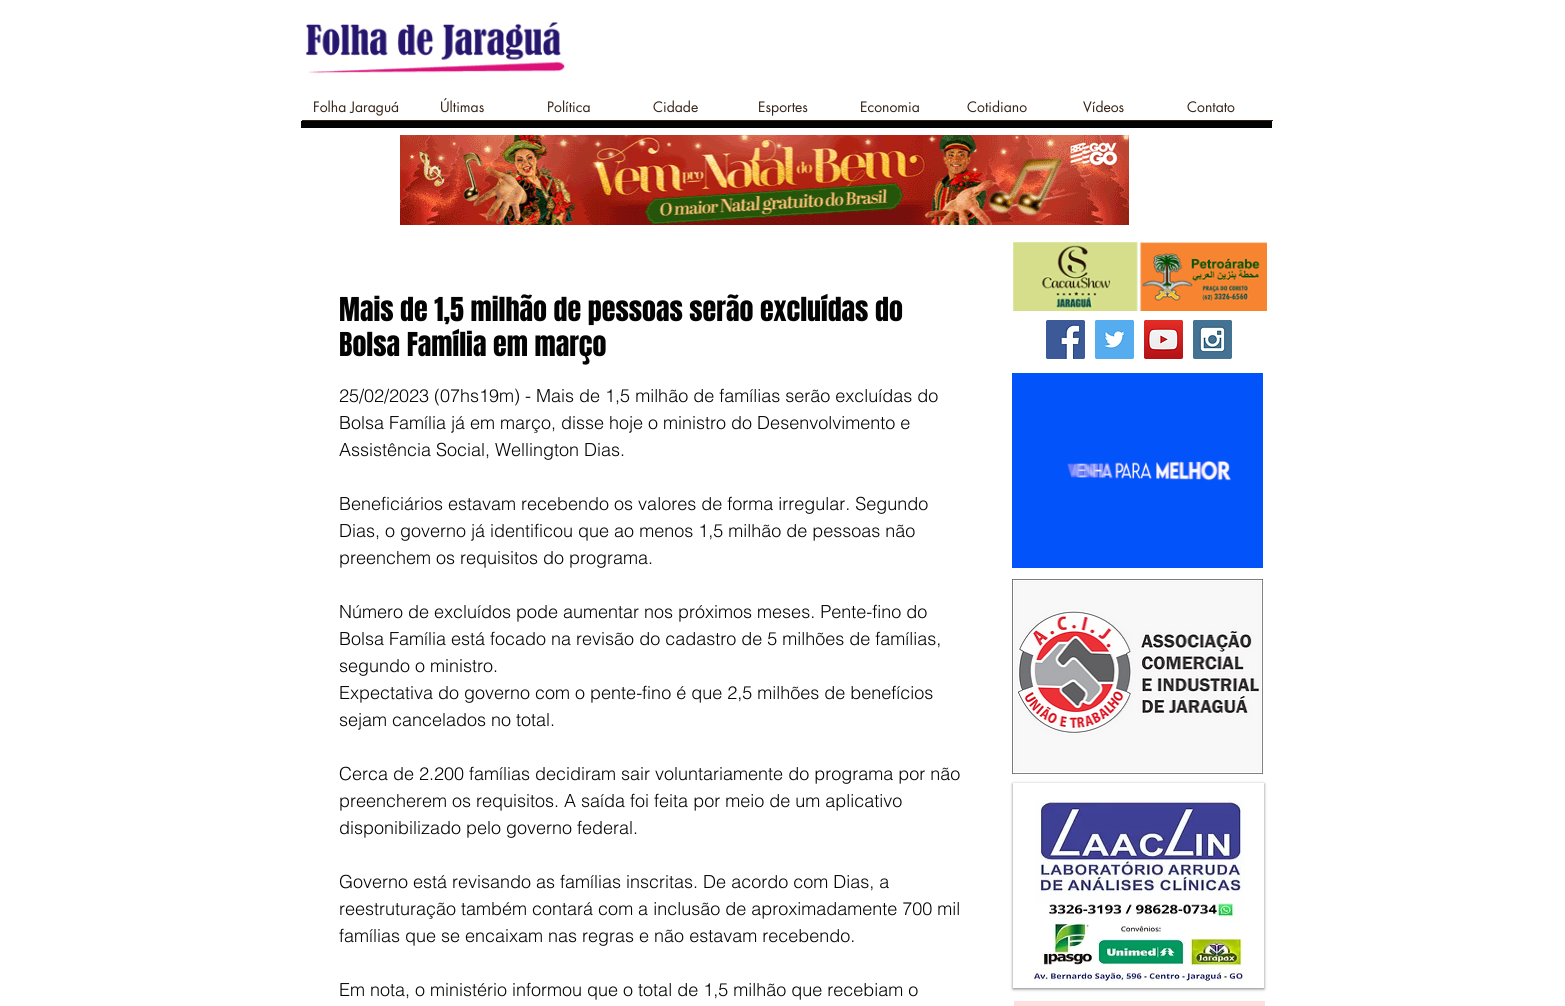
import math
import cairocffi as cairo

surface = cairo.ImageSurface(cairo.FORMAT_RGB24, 1565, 1006)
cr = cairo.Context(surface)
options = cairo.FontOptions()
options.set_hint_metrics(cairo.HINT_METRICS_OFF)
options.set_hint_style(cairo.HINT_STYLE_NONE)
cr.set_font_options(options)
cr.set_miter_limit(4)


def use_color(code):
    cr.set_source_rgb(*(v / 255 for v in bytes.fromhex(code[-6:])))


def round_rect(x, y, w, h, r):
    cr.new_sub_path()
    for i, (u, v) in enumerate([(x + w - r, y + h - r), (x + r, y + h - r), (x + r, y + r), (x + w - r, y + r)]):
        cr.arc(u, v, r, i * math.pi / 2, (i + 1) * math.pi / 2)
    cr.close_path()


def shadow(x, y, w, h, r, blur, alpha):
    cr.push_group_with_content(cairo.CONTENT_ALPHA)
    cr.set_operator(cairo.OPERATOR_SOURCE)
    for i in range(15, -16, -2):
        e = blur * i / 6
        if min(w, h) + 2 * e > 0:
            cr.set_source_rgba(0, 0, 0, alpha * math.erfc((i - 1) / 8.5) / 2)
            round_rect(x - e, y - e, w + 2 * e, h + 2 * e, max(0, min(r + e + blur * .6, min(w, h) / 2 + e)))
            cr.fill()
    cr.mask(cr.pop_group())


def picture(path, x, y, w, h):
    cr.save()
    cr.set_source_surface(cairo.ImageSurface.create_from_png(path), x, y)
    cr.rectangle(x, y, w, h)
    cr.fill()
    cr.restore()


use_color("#ffffff")
cr.paint()
picture("img1.png", 305, 22, 260, 52)
cr.select_font_face("futura")
cr.set_font_size(14)
use_color("#342216")
cr.move_to(313, 112)
cr.show_text("Folha Jaraguá")
cr.move_to(440, 112)
cr.show_text("Últimas")
cr.move_to(547, 112)
cr.show_text("Política")
cr.move_to(653, 112)
cr.show_text("Cidade")
cr.move_to(758, 112)
cr.show_text("Esportes")
cr.move_to(860, 112)
cr.show_text("Economia")
cr.move_to(967, 112)
cr.show_text("Cotidiano")
cr.move_to(1083, 112)
cr.show_text("Vídeos")
cr.move_to(1187, 112)
cr.show_text("Contato")
cr.rectangle(302, 120, 971, 1)
cr.fill()
use_color("#030303")
cr.rectangle(301, 121, 971, 7)
cr.fill()
picture("img2.png", 400, 135, 729, 90)
cr.select_font_face("Anton")
cr.set_font_size(28)
cr.move_to(339, 321)
cr.show_text("Mais de 1,5 milhão de pessoas serão excluídas do")
cr.move_to(339, 356)
cr.show_text("Bolsa Família em março")
cr.select_font_face("helvetica Light")
cr.set_font_size(18)
cr.move_to(339, 402)
cr.show_text("25/02/2023 (07hs19m) - Mais de 1,5 milhão de famílias serão excluídas do")
cr.move_to(339, 429)
cr.show_text("Bolsa Família já em março, disse hoje o ministro do Desenvolvimento e")
cr.move_to(339, 456)
cr.show_text("Assistência Social, Wellington Dias.")
cr.move_to(339, 510)
cr.show_text("Beneficiários estavam recebendo os valores de forma irregular. Segundo")
cr.move_to(339, 537)
cr.show_text("Dias, o governo já identificou que ao menos 1,5 milhão de pessoas não")
cr.move_to(339, 564)
cr.show_text("preenchem os requisitos do programa.")
cr.move_to(339, 618)
cr.show_text("Número de excluídos pode aumentar nos próximos meses. Pente-fino do")
cr.move_to(339, 645)
cr.show_text("Bolsa Família está focado na revisão do cadastro de 5 milhões de famílias,")
cr.move_to(339, 672)
cr.show_text("segundo o ministro.")
cr.move_to(339, 699)
cr.show_text("Expectativa do governo com o pente-fino é que 2,5 milhões de benefícios")
cr.move_to(339, 726)
cr.show_text("sejam cancelados no total.")
cr.move_to(339, 780)
cr.show_text("Cerca de 2.200 famílias decidiram sair voluntariamente do programa por não")
cr.move_to(339, 807)
cr.show_text("preencherem os requisitos. A saída foi feita por meio de um aplicativo")
cr.move_to(339, 834)
cr.show_text("disponibilizado pelo governo federal.")
cr.move_to(339, 888)
cr.show_text("Governo está revisando as famílias inscritas. De acordo com Dias, a")
cr.move_to(339, 915)
cr.show_text("reestruturação também contará com a inclusão de aproximadamente 700 mil")
cr.move_to(339, 942)
cr.show_text("famílias que se encaixam nas regras e não estavam recebendo.")
cr.move_to(339, 996)
cr.show_text("Em nota, o ministério informou que o total de 1,5 milhão que recebiam o")
picture("img3.png", 1013, 242, 254, 69)
picture("img4.png", 1046, 320, 39, 39)
picture("img5.png", 1095, 320, 39, 39)
picture("img6.png", 1144, 320, 39, 39)
picture("img7.png", 1193, 320, 39, 39)
picture("img8.png", 1012, 373, 251, 195)
picture("img9.png", 1012, 579, 251, 195)
cr.save()
cr.set_fill_rule(cairo.FILL_RULE_EVEN_ODD)
cr.new_path()
cr.move_to(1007, 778)
cr.line_to(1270, 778)
cr.line_to(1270, 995)
cr.line_to(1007, 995)
cr.close_path()
cr.move_to(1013, 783)
cr.line_to(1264, 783)
cr.line_to(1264, 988)
cr.line_to(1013, 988)
cr.close_path()
cr.clip()
use_color("#000000")
shadow(1013, 784, 251, 205, 0, 1.5, 0.5)
cr.restore()
picture("img10.png", 1033, 800, 212, 182)
use_color("#ffdede")
cr.rectangle(1014, 1001, 251, 5)
cr.fill()
surface.write_to_png("result.png")
